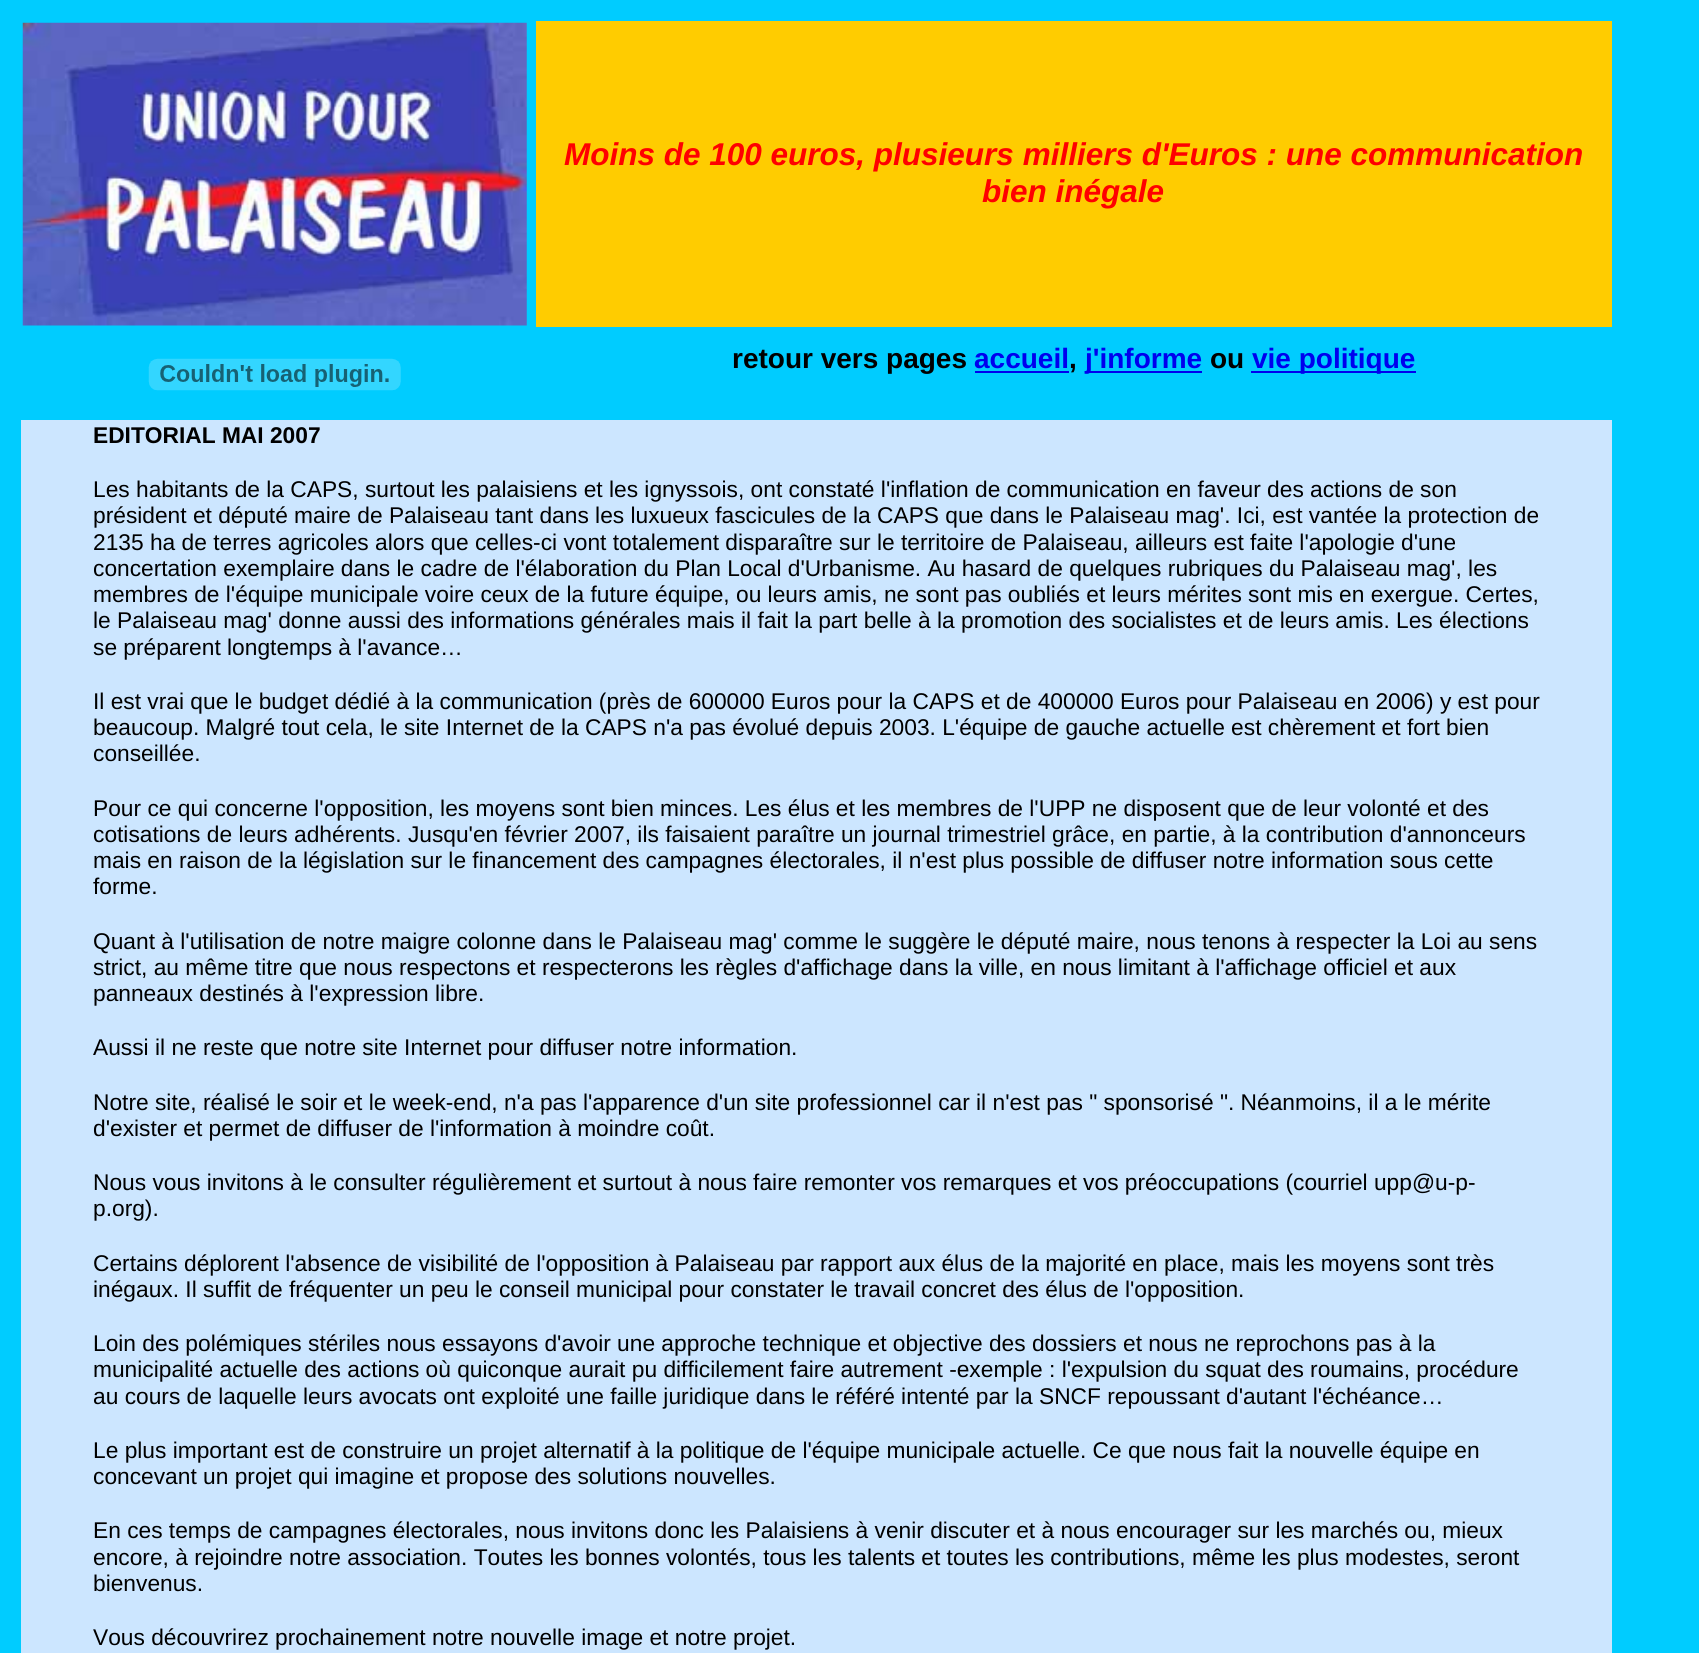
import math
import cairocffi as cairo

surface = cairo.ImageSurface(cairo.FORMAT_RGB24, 1699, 1653)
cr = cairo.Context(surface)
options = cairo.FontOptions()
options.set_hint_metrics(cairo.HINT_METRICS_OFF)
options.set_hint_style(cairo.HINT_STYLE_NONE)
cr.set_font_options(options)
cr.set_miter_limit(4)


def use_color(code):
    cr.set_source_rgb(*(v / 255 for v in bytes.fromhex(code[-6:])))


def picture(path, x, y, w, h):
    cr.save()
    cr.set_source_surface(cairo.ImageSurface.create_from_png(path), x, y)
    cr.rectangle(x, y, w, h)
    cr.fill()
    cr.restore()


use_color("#00ccff")
cr.paint()
picture("img1.png", 22, 22, 505, 304)
use_color("#ffcc00")
cr.rectangle(536, 21, 1076, 306)
cr.fill()
cr.select_font_face("Liberation Sans", cairo.FONT_SLANT_ITALIC, cairo.FONT_WEIGHT_BOLD)
cr.set_font_size(31.5)
use_color("#ff0000")
cr.move_to(564, 165)
cr.show_text("Moins de 100 euros, plusieurs milliers d'Euros : une communication")
cr.move_to(982, 202)
cr.show_text("bien inégale")
picture("img2.png", 148, 358, 253, 33)
cr.select_font_face("Liberation Sans", cairo.FONT_SLANT_NORMAL, cairo.FONT_WEIGHT_BOLD)
cr.set_font_size(28)
use_color("#000000")
cr.move_to(732, 368)
cr.show_text("retour vers pages")
use_color("#0000ee")
cr.move_to(974, 368)
cr.show_text("accueil")
use_color("#000000")
cr.move_to(1069, 368)
cr.show_text(",")
use_color("#0000ee")
cr.rectangle(975, 371, 94, 2)
cr.fill()
cr.rectangle(1085, 371, 117, 2)
cr.fill()
cr.move_to(1085, 368)
cr.show_text("j'informe")
use_color("#000000")
cr.move_to(1210, 368)
cr.show_text("ou")
use_color("#0000ee")
cr.rectangle(1251, 371, 165, 2)
cr.fill()
cr.move_to(1252, 368)
cr.show_text("vie politique")
use_color("#cce6ff")
cr.rectangle(21, 420, 1591, 1233)
cr.fill()
cr.set_font_size(22.75)
use_color("#000000")
cr.move_to(93, 443)
cr.show_text("EDITORIAL MAI 2007")
cr.select_font_face("Liberation Sans")
cr.move_to(93, 497)
cr.show_text("Les habitants de la CAPS, surtout les palaisiens et les ignyssois, ont constaté l'inflation de communication en faveur des actions de son")
cr.move_to(93, 523)
cr.show_text("président et député maire de Palaiseau tant dans les luxueux fascicules de la CAPS que dans le Palaiseau mag'. Ici, est vantée la protection de")
cr.move_to(93, 550)
cr.show_text("2135 ha de terres agricoles alors que celles-ci vont totalement disparaître sur le territoire de Palaiseau, ailleurs est faite l'apologie d'une")
cr.move_to(93, 576)
cr.show_text("concertation exemplaire dans le cadre de l'élaboration du Plan Local d'Urbanisme. Au hasard de quelques rubriques du Palaiseau mag', les")
cr.move_to(93, 602)
cr.show_text("membres de l'équipe municipale voire ceux de la future équipe, ou leurs amis, ne sont pas oubliés et leurs mérites sont mis en exergue. Certes,")
cr.move_to(93, 628)
cr.show_text("le Palaiseau mag' donne aussi des informations générales mais il fait la part belle à la promotion des socialistes et de leurs amis. Les élections")
cr.move_to(93, 655)
cr.show_text("se préparent longtemps à l'avance…")
cr.move_to(93, 709)
cr.show_text("Il est vrai que le budget dédié à la communication (près de 600000 Euros pour la CAPS et de 400000 Euros pour Palaiseau en 2006) y est pour")
cr.move_to(93, 735)
cr.show_text("beaucoup. Malgré tout cela, le site Internet de la CAPS n'a pas évolué depuis 2003. L'équipe de gauche actuelle est chèrement et fort bien")
cr.move_to(93, 761)
cr.show_text("conseillée.")
cr.move_to(93, 816)
cr.show_text("Pour ce qui concerne l'opposition, les moyens sont bien minces. Les élus et les membres de l'UPP ne disposent que de leur volonté et des")
cr.move_to(93, 842)
cr.show_text("cotisations de leurs adhérents. Jusqu'en février 2007, ils faisaient paraître un journal trimestriel grâce, en partie, à la contribution d'annonceurs")
cr.move_to(93, 868)
cr.show_text("mais en raison de la législation sur le financement des campagnes électorales, il n'est plus possible de diffuser notre information sous cette")
cr.move_to(93, 894)
cr.show_text("forme.")
cr.move_to(93, 949)
cr.show_text("Quant à l'utilisation de notre maigre colonne dans le Palaiseau mag' comme le suggère le député maire, nous tenons à respecter la Loi au sens")
cr.move_to(93, 975)
cr.show_text("strict, au même titre que nous respectons et respecterons les règles d'affichage dans la ville, en nous limitant à l'affichage officiel et aux")
cr.move_to(93, 1001)
cr.show_text("panneaux destinés à l'expression libre.")
cr.move_to(93, 1055)
cr.show_text("Aussi il ne reste que notre site Internet pour diffuser notre information.")
cr.move_to(93, 1110)
cr.show_text("Notre site, réalisé le soir et le week-end, n'a pas l'apparence d'un site professionnel car il n'est pas \" sponsorisé \". Néanmoins, il a le mérite")
cr.move_to(93, 1136)
cr.show_text("d'exister et permet de diffuser de l'information à moindre coût.")
cr.move_to(93, 1190)
cr.show_text("Nous vous invitons à le consulter régulièrement et surtout à nous faire remonter vos remarques et vos préoccupations (courriel upp@u-p-")
cr.move_to(93, 1216)
cr.show_text("p.org).")
cr.move_to(93, 1271)
cr.show_text("Certains déplorent l'absence de visibilité de l'opposition à Palaiseau par rapport aux élus de la majorité en place, mais les moyens sont très")
cr.move_to(93, 1297)
cr.show_text("inégaux. Il suffit de fréquenter un peu le conseil municipal pour constater le travail concret des élus de l'opposition.")
cr.move_to(93, 1351)
cr.show_text("Loin des polémiques stériles nous essayons d'avoir une approche technique et objective des dossiers et nous ne reprochons pas à la")
cr.move_to(93, 1377)
cr.show_text("municipalité actuelle des actions où quiconque aurait pu difficilement faire autrement -exemple : l'expulsion du squat des roumains, procédure")
cr.move_to(93, 1404)
cr.show_text("au cours de laquelle leurs avocats ont exploité une faille juridique dans le référé intenté par la SNCF repoussant d'autant l'échéance…")
cr.move_to(93, 1458)
cr.show_text("Le plus important est de construire un projet alternatif à la politique de l'équipe municipale actuelle. Ce que nous fait la nouvelle équipe en")
cr.move_to(93, 1484)
cr.show_text("concevant un projet qui imagine et propose des solutions nouvelles.")
cr.move_to(93, 1538)
cr.show_text("En ces temps de campagnes électorales, nous invitons donc les Palaisiens à venir discuter et à nous encourager sur les marchés ou, mieux")
cr.move_to(93, 1565)
cr.show_text("encore, à rejoindre notre association. Toutes les bonnes volontés, tous les talents et toutes les contributions, même les plus modestes, seront")
cr.move_to(93, 1591)
cr.show_text("bienvenus.")
cr.move_to(93, 1645)
cr.show_text("Vous découvrirez prochainement notre nouvelle image et notre projet.")
surface.write_to_png("result.png")
